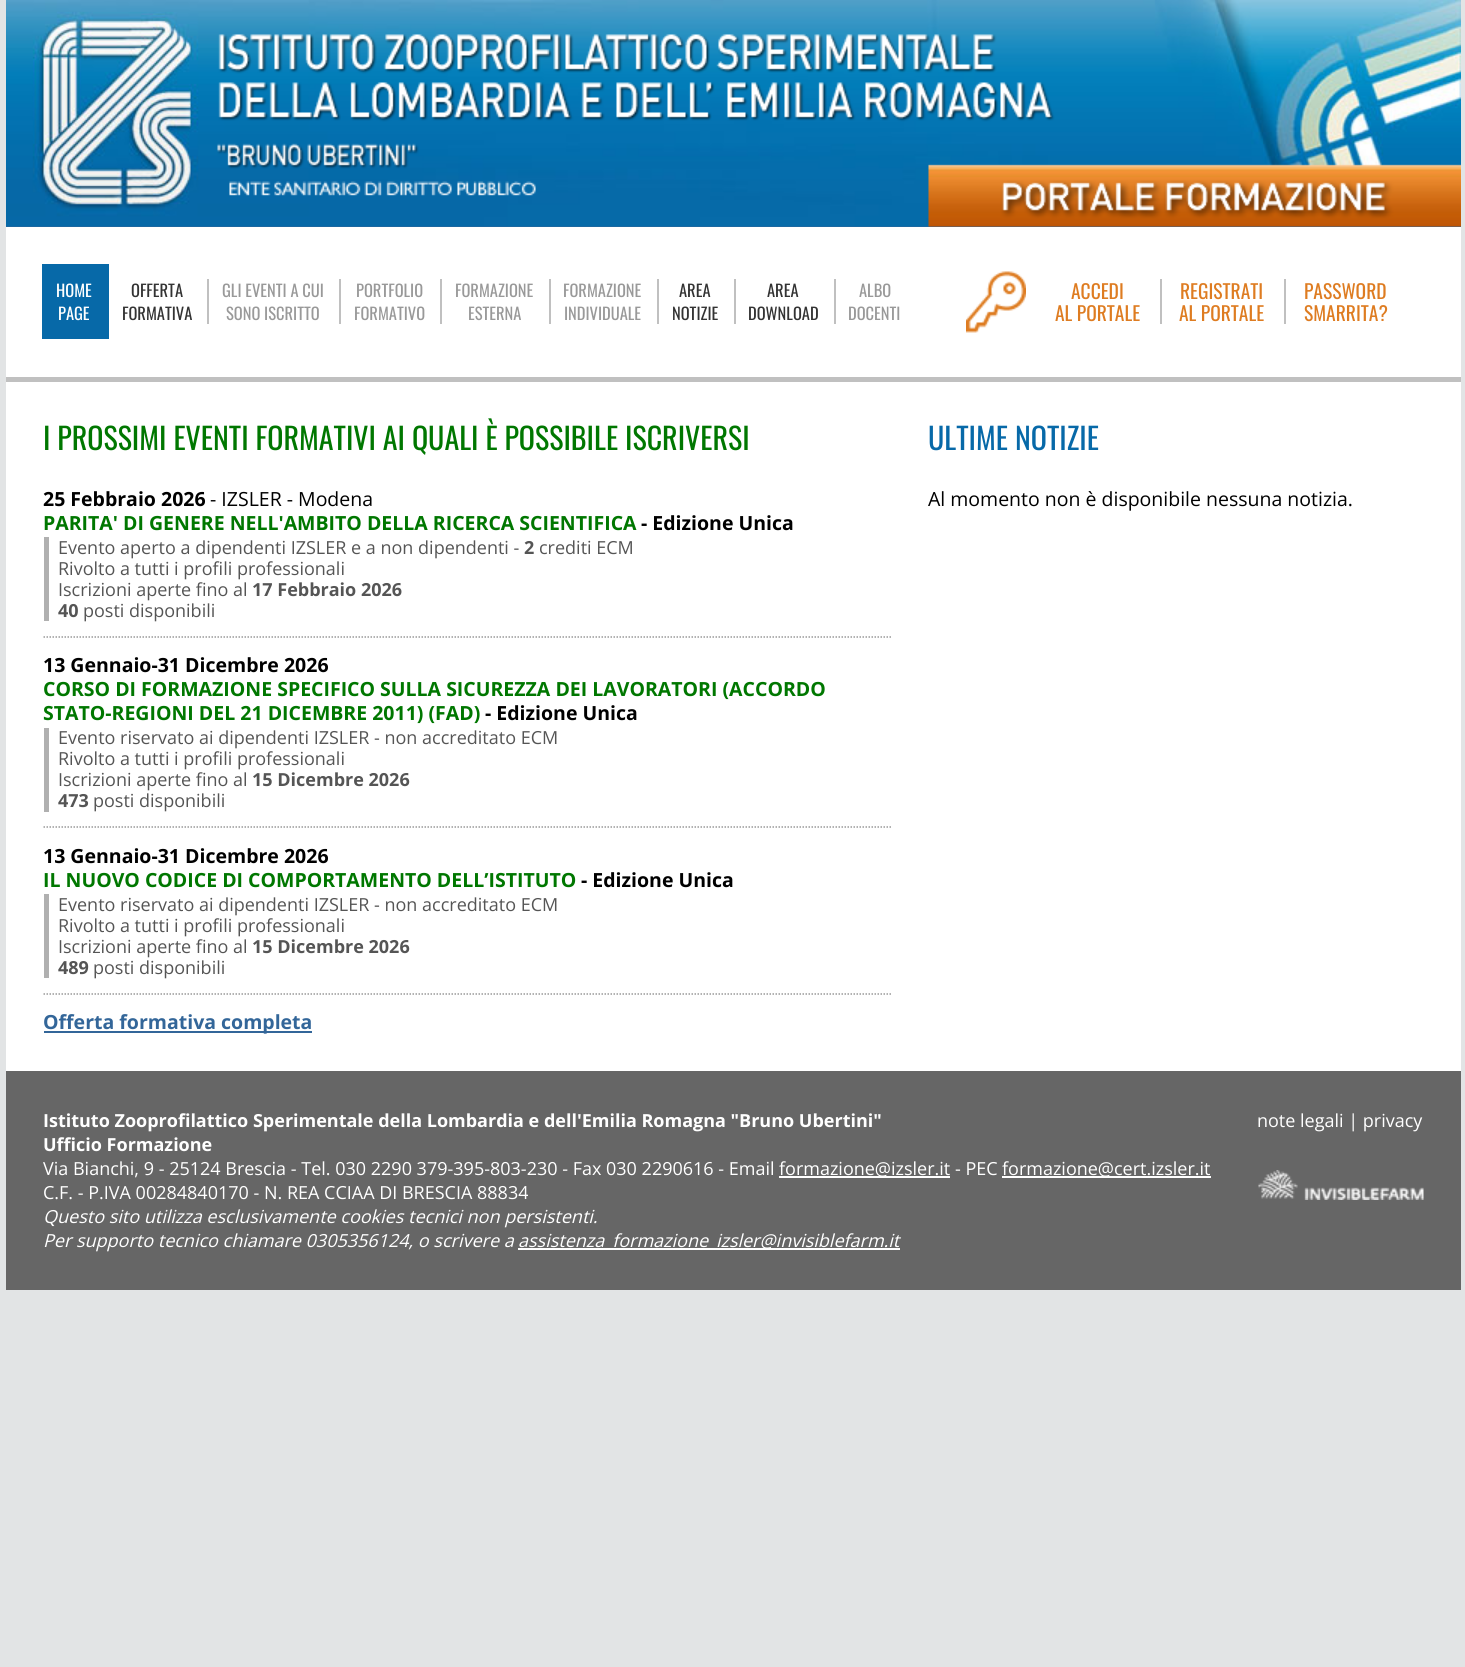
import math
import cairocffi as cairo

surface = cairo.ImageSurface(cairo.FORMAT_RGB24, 1465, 1667)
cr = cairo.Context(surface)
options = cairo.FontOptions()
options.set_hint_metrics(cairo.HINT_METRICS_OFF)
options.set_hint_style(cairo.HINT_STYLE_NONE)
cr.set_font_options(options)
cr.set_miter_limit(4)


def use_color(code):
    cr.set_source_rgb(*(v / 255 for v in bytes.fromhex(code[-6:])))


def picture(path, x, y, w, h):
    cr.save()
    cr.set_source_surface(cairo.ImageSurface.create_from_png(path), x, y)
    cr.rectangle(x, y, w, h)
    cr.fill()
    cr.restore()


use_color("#e2e4e5")
cr.paint()
use_color("#ffffff")
cr.rectangle(6, 227, 1455, 844)
cr.fill()
use_color("#336699")
cr.rectangle(6, 226, 1455, 1)
cr.fill()
picture("img1.png", 6, 0, 1455, 227)
use_color("#c0c0c0")
cr.rectangle(6, 377, 1455, 5)
cr.fill()
use_color("#0769a8")
cr.rectangle(42, 264, 67, 75)
cr.fill()
cr.select_font_face("Oswald")
cr.set_font_size(16.5)
use_color("#ffffff")
cr.move_to(56, 297)
cr.show_text("HOME")
cr.move_to(58, 320)
cr.show_text("PAGE")
use_color("#c0c0c0")
cr.rectangle(207, 279, 2, 45)
cr.fill()
use_color("#333333")
cr.move_to(131, 297)
cr.show_text("OFFERTA")
cr.move_to(122, 320)
cr.show_text("FORMATIVA")
use_color("#c0c0c0")
cr.rectangle(339, 279, 2, 45)
cr.fill()
use_color("#999999")
cr.move_to(222, 297)
cr.show_text("GLI EVENTI A CUI")
cr.move_to(226, 320)
cr.show_text("SONO ISCRITTO")
use_color("#c0c0c0")
cr.rectangle(440, 279, 2, 45)
cr.fill()
use_color("#999999")
cr.move_to(356, 297)
cr.show_text("PORTFOLIO")
cr.move_to(354, 320)
cr.show_text("FORMATIVO")
use_color("#c0c0c0")
cr.rectangle(549, 279, 2, 45)
cr.fill()
use_color("#999999")
cr.move_to(455, 297)
cr.show_text("FORMAZIONE")
cr.move_to(468, 320)
cr.show_text("ESTERNA")
use_color("#c0c0c0")
cr.rectangle(657, 279, 2, 45)
cr.fill()
use_color("#999999")
cr.move_to(563, 297)
cr.show_text("FORMAZIONE")
cr.move_to(564, 320)
cr.show_text("INDIVIDUALE")
use_color("#c0c0c0")
cr.rectangle(734, 279, 2, 45)
cr.fill()
use_color("#333333")
cr.move_to(679, 297)
cr.show_text("AREA")
cr.move_to(672, 320)
cr.show_text("NOTIZIE")
use_color("#c0c0c0")
cr.rectangle(834, 279, 2, 45)
cr.fill()
use_color("#333333")
cr.move_to(767, 297)
cr.show_text("AREA")
cr.move_to(748, 320)
cr.show_text("DOWNLOAD")
use_color("#999999")
cr.move_to(859, 297)
cr.show_text("ALBO")
cr.move_to(848, 320)
cr.show_text("DOCENTI")
picture("img2.png", 966, 271, 60, 62)
use_color("#c0c0c0")
cr.rectangle(1160, 279, 2, 45)
cr.fill()
cr.set_font_size(19.5)
use_color("#de7c21")
cr.move_to(1071, 299)
cr.show_text("ACCEDI")
cr.move_to(1055, 321)
cr.show_text("AL PORTALE")
use_color("#c0c0c0")
cr.rectangle(1284, 279, 2, 45)
cr.fill()
use_color("#de7c21")
cr.move_to(1180, 299)
cr.show_text("REGISTRATI")
cr.move_to(1179, 321)
cr.show_text("AL PORTALE")
cr.move_to(1304, 299)
cr.show_text("PASSWORD")
cr.move_to(1304, 321)
cr.show_text("SMARRITA?")
cr.set_font_size(30)
use_color("#007700")
cr.move_to(43, 450)
cr.show_text("I PROSSIMI EVENTI FORMATIVI AI QUALI È POSSIBILE ISCRIVERSI")
cr.new_path()
cr.move_to(43.5, 637)
cr.line_to(891, 637)
use_color("#999999")
cr.set_line_width(1.5)
cr.set_dash([1.5, 1.5])
cr.stroke()
cr.select_font_face("Open Sans", cairo.FONT_SLANT_NORMAL, cairo.FONT_WEIGHT_BOLD)
cr.set_font_size(19.5)
use_color("#000000")
cr.move_to(43, 506)
cr.show_text("25 Febbraio 2026")
cr.select_font_face("Open Sans")
cr.move_to(210, 506)
cr.show_text("- IZSLER - Modena")
cr.select_font_face("Open Sans", cairo.FONT_SLANT_NORMAL, cairo.FONT_WEIGHT_BOLD)
use_color("#007700")
cr.move_to(43, 530)
cr.show_text("PARITA' DI GENERE NELL'AMBITO DELLA RICERCA SCIENTIFICA")
use_color("#000000")
cr.move_to(641, 530)
cr.show_text("- Edizione Unica")
use_color("#b0b0b0")
cr.rectangle(44, 537, 5, 84)
cr.fill()
cr.select_font_face("Open Sans")
cr.set_font_size(18)
use_color("#555555")
cr.move_to(58, 554)
cr.show_text("Evento aperto a dipendenti IZSLER e a non dipendenti -")
cr.select_font_face("Open Sans", cairo.FONT_SLANT_NORMAL, cairo.FONT_WEIGHT_BOLD)
cr.move_to(524, 554)
cr.show_text("2")
cr.select_font_face("Open Sans")
cr.move_to(539, 554)
cr.show_text("crediti ECM")
cr.move_to(58, 575)
cr.show_text("Rivolto a tutti i profili professionali")
cr.move_to(58, 596)
cr.show_text("Iscrizioni aperte fino al")
cr.select_font_face("Open Sans", cairo.FONT_SLANT_NORMAL, cairo.FONT_WEIGHT_BOLD)
cr.move_to(252, 596)
cr.show_text("17 Febbraio 2026")
cr.move_to(58, 617)
cr.show_text("40")
cr.select_font_face("Open Sans")
cr.move_to(83, 617)
cr.show_text("posti disponibili")
cr.new_path()
cr.move_to(43.5, 827)
cr.line_to(891, 827)
use_color("#999999")
cr.stroke()
cr.select_font_face("Open Sans", cairo.FONT_SLANT_NORMAL, cairo.FONT_WEIGHT_BOLD)
cr.set_font_size(19.5)
use_color("#000000")
cr.move_to(43, 672)
cr.show_text("13 Gennaio-31 Dicembre 2026")
use_color("#007700")
cr.move_to(43, 696)
cr.show_text("CORSO DI FORMAZIONE SPECIFICO SULLA SICUREZZA DEI LAVORATORI (ACCORDO")
cr.move_to(43, 720)
cr.show_text("STATO-REGIONI DEL 21 DICEMBRE 2011) (FAD)")
use_color("#000000")
cr.move_to(485, 720)
cr.show_text("- Edizione Unica")
use_color("#b0b0b0")
cr.rectangle(44, 728, 5, 84)
cr.fill()
cr.select_font_face("Open Sans")
cr.set_font_size(18)
use_color("#555555")
cr.move_to(58, 744)
cr.show_text("Evento riservato ai dipendenti IZSLER - non accreditato ECM")
cr.move_to(58, 765)
cr.show_text("Rivolto a tutti i profili professionali")
cr.move_to(58, 786)
cr.show_text("Iscrizioni aperte fino al")
cr.select_font_face("Open Sans", cairo.FONT_SLANT_NORMAL, cairo.FONT_WEIGHT_BOLD)
cr.move_to(252, 786)
cr.show_text("15 Dicembre 2026")
cr.move_to(58, 807)
cr.show_text("473")
cr.select_font_face("Open Sans")
cr.move_to(93, 807)
cr.show_text("posti disponibili")
cr.new_path()
cr.move_to(43.5, 994)
cr.line_to(891, 994)
use_color("#999999")
cr.stroke()
cr.select_font_face("Open Sans", cairo.FONT_SLANT_NORMAL, cairo.FONT_WEIGHT_BOLD)
cr.set_font_size(19.5)
use_color("#000000")
cr.move_to(43, 863)
cr.show_text("13 Gennaio-31 Dicembre 2026")
use_color("#007700")
cr.move_to(43, 887)
cr.show_text("IL NUOVO CODICE DI COMPORTAMENTO DELL’ISTITUTO")
use_color("#000000")
cr.move_to(581, 887)
cr.show_text("- Edizione Unica")
use_color("#b0b0b0")
cr.rectangle(44, 894, 5, 84)
cr.fill()
cr.select_font_face("Open Sans")
cr.set_font_size(18)
use_color("#555555")
cr.move_to(58, 911)
cr.show_text("Evento riservato ai dipendenti IZSLER - non accreditato ECM")
cr.move_to(58, 932)
cr.show_text("Rivolto a tutti i profili professionali")
cr.move_to(58, 953)
cr.show_text("Iscrizioni aperte fino al")
cr.select_font_face("Open Sans", cairo.FONT_SLANT_NORMAL, cairo.FONT_WEIGHT_BOLD)
cr.move_to(252, 953)
cr.show_text("15 Dicembre 2026")
cr.move_to(58, 974)
cr.show_text("489")
cr.select_font_face("Open Sans")
cr.move_to(93, 974)
cr.show_text("posti disponibili")
use_color("#336699")
cr.rectangle(44, 1031, 268, 2)
cr.fill()
cr.select_font_face("Open Sans", cairo.FONT_SLANT_NORMAL, cairo.FONT_WEIGHT_BOLD)
cr.set_font_size(19.5)
cr.move_to(43, 1029)
cr.show_text("Offerta formativa completa")
cr.select_font_face("Oswald")
cr.set_font_size(30)
use_color("#0769a8")
cr.move_to(928, 450)
cr.show_text("ULTIME NOTIZIE")
cr.select_font_face("Open Sans")
cr.set_font_size(19.5)
use_color("#000000")
cr.move_to(928, 506)
cr.show_text("Al momento non è disponibile nessuna notizia.")
use_color("#666666")
cr.rectangle(6, 1071, 1455, 219)
cr.fill()
cr.select_font_face("Open Sans", cairo.FONT_SLANT_NORMAL, cairo.FONT_WEIGHT_BOLD)
cr.set_font_size(18)
use_color("#ffffff")
cr.move_to(43, 1127)
cr.show_text("Istituto Zooprofilattico Sperimentale della Lombardia e dell'Emilia Romagna \"Bruno Ubertini\"")
cr.move_to(43, 1151)
cr.show_text("Ufficio Formazione")
cr.select_font_face("Open Sans")
cr.move_to(43, 1175)
cr.show_text("Via Bianchi, 9 - 25124 Brescia - Tel. 030 2290 379-395-803-230 - Fax 030 2290616 - Email")
cr.rectangle(779, 1176, 171, 2)
cr.fill()
cr.move_to(779, 1175)
cr.show_text("formazione@izsler.it - PEC")
cr.rectangle(1002, 1176, 209, 2)
cr.fill()
cr.move_to(1002, 1175)
cr.show_text("formazione@cert.izsler.it")
cr.move_to(43, 1199)
cr.show_text("C.F. - P.IVA 00284840170 - N. REA CCIAA DI BRESCIA 88834")
cr.select_font_face("Open Sans", cairo.FONT_SLANT_ITALIC)
cr.move_to(43, 1223)
cr.show_text("Questo sito utilizza esclusivamente cookies tecnici non persistenti.")
cr.move_to(43, 1247)
cr.show_text("Per supporto tecnico chiamare 0305356124, o scrivere a")
cr.rectangle(518, 1248, 382, 2)
cr.fill()
cr.move_to(518, 1247)
cr.show_text("assistenza_formazione_izsler@invisiblefarm.it")
cr.select_font_face("Open Sans")
cr.move_to(1257, 1127)
cr.show_text("note legali | privacy")
picture("img3.png", 1258, 1170, 166, 30)
surface.write_to_png("result.png")
